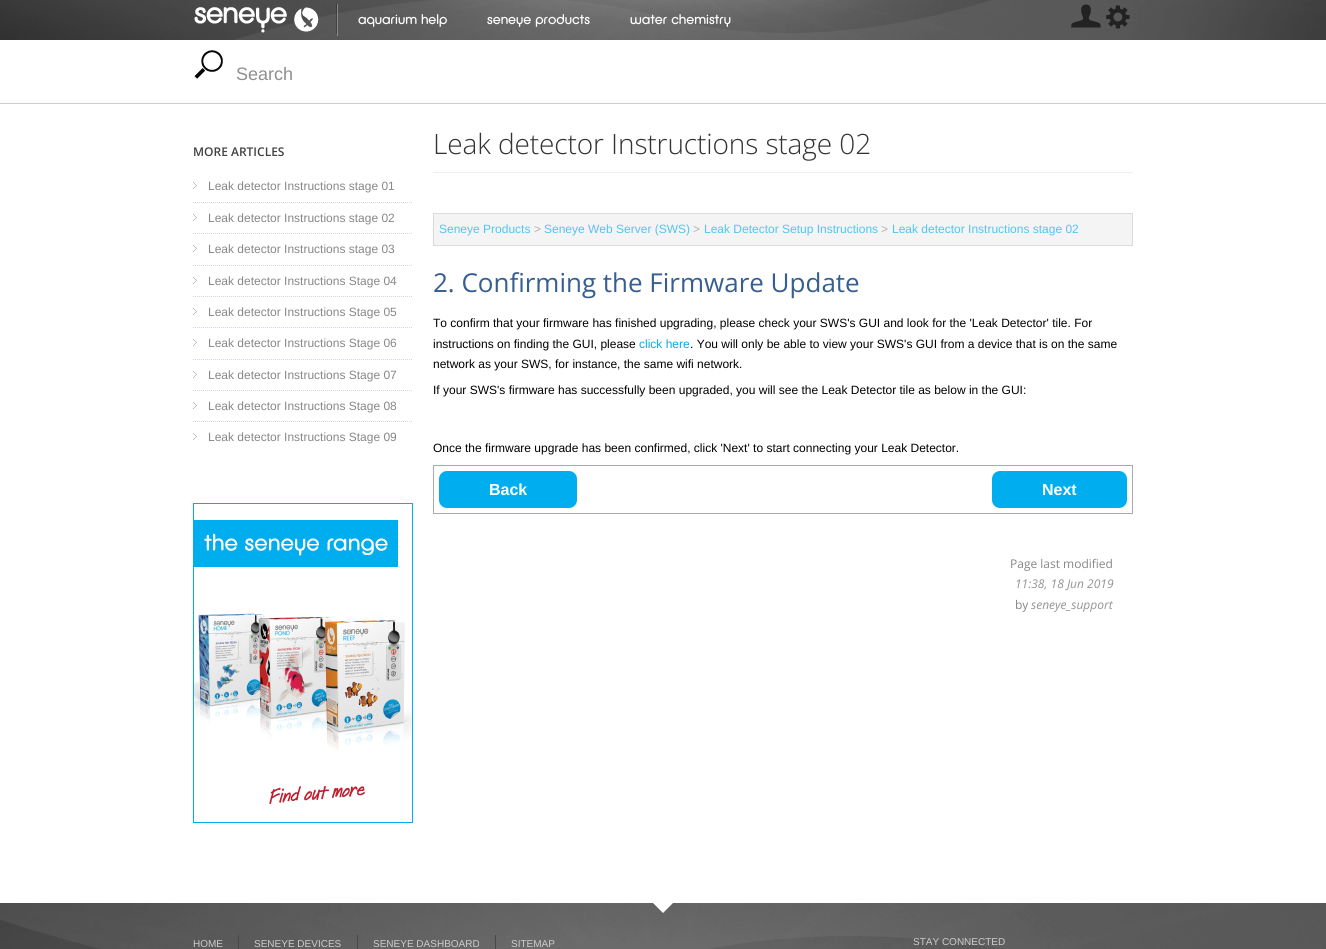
import math
import cairocffi as cairo

surface = cairo.ImageSurface(cairo.FORMAT_RGB24, 1326, 949)
cr = cairo.Context(surface)
options = cairo.FontOptions()
options.set_hint_metrics(cairo.HINT_METRICS_OFF)
options.set_hint_style(cairo.HINT_STYLE_NONE)
cr.set_font_options(options)
cr.set_miter_limit(4)


def use_color(code):
    cr.set_source_rgb(*(v / 255 for v in bytes.fromhex(code[-6:])))


def spaced_text(x, y, s, letter, word):
    cr.move_to(x, y)
    for ch in s:
        cr.show_text(ch)
        cr.rel_move_to(letter + word * (ch == ' '), 0)


def round_rect(x, y, w, h, r):
    cr.new_sub_path()
    for i, (u, v) in enumerate([(x + w - r, y + h - r), (x + r, y + h - r), (x + r, y + r), (x + w - r, y + r)]):
        cr.arc(u, v, r, i * math.pi / 2, (i + 1) * math.pi / 2)
    cr.close_path()


def picture(path, x, y, w, h):
    cr.save()
    cr.set_source_surface(cairo.ImageSurface.create_from_png(path), x, y)
    cr.rectangle(x, y, w, h)
    cr.fill()
    cr.restore()


use_color("#ffffff")
cr.paint()
picture("img1.png", 0, 0, 1326, 40)
picture("img2.png", 194, 3, 144, 31)
use_color("#888888")
cr.rectangle(337, 4, 1, 32)
cr.fill()
cr.select_font_face("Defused")
cr.set_font_size(14)
use_color("#ffffff")
cr.move_to(358, 24)
cr.show_text("aquarium help")
cr.move_to(487, 24)
cr.show_text("seneye products")
cr.move_to(630, 24)
cr.show_text("water chemistry")
picture("img3.png", 1071, 4, 30, 24)
picture("img4.png", 1106, 5, 24, 24)
use_color("#cccccc")
cr.rectangle(0, 103, 1326, 1)
cr.fill()
picture("img5.png", 194, 50, 29, 29)
cr.select_font_face("Liberation Sans")
cr.set_font_size(18)
use_color("#8f8f8f")
cr.move_to(236, 80)
cr.show_text("Search")
cr.select_font_face("Open Sans SemiBold")
cr.set_font_size(12)
use_color("#414141")
cr.move_to(193, 156)
cr.show_text("MORE ARTICLES")
picture("img6.png", 193, 182, 4, 7)
cr.new_path()
cr.move_to(193, 202.5)
cr.line_to(413, 202.5)
use_color("#ced8df")
cr.set_line_width(1)
cr.set_dash([1, 1])
cr.stroke()
cr.select_font_face("Liberation Sans")
use_color("#878787")
cr.move_to(208, 190)
cr.show_text("Leak detector Instructions stage 01")
picture("img6.png", 193, 214, 4, 7)
cr.new_path()
cr.move_to(193, 233.5)
cr.line_to(413, 233.5)
use_color("#ced8df")
cr.stroke()
use_color("#878787")
cr.move_to(208, 222)
cr.show_text("Leak detector Instructions stage 02")
picture("img6.png", 193, 245, 4, 7)
cr.new_path()
cr.move_to(193, 265.5)
cr.line_to(413, 265.5)
use_color("#ced8df")
cr.stroke()
use_color("#878787")
cr.move_to(208, 253)
cr.show_text("Leak detector Instructions stage 03")
picture("img6.png", 193, 277, 4, 7)
cr.new_path()
cr.move_to(193, 296.5)
cr.line_to(413, 296.5)
use_color("#ced8df")
cr.stroke()
use_color("#878787")
cr.move_to(208, 285)
cr.show_text("Leak detector Instructions Stage 04")
picture("img6.png", 193, 308, 4, 7)
cr.new_path()
cr.move_to(193, 327.5)
cr.line_to(413, 327.5)
use_color("#ced8df")
cr.stroke()
use_color("#878787")
cr.move_to(208, 316)
cr.show_text("Leak detector Instructions Stage 05")
picture("img6.png", 193, 339, 4, 7)
cr.new_path()
cr.move_to(193, 359.5)
cr.line_to(413, 359.5)
use_color("#ced8df")
cr.stroke()
use_color("#878787")
cr.move_to(208, 347)
cr.show_text("Leak detector Instructions Stage 06")
picture("img6.png", 193, 371, 4, 7)
cr.new_path()
cr.move_to(193, 390.5)
cr.line_to(413, 390.5)
use_color("#ced8df")
cr.stroke()
use_color("#878787")
cr.move_to(208, 379)
cr.show_text("Leak detector Instructions Stage 07")
picture("img6.png", 193, 402, 4, 7)
cr.new_path()
cr.move_to(193, 421.5)
cr.line_to(413, 421.5)
use_color("#ced8df")
cr.stroke()
use_color("#878787")
cr.move_to(208, 410)
cr.show_text("Leak detector Instructions Stage 08")
picture("img6.png", 193, 433, 4, 7)
cr.move_to(208, 441)
cr.show_text("Leak detector Instructions Stage 09")
picture("img7.png", 193, 503, 220, 320)
use_color("#efefef")
cr.rectangle(433, 172, 700, 1)
cr.fill()
cr.select_font_face("Open Sans Light")
cr.set_font_size(28)
use_color("#333333")
spaced_text(433, 154, "Leak detector Instructions stage 02", -0.1, 0)
use_color("#f4f4f4")
cr.rectangle(433.5, 213.5, 699, 32)
cr.fill_preserve()
use_color("#dbdbdb")
cr.set_dash([])
cr.stroke()
cr.select_font_face("Liberation Sans")
cr.set_font_size(12)
use_color("#4dc6f4")
cr.move_to(439, 233)
cr.show_text("Seneye Products")
use_color("#b1b1b1")
cr.move_to(534, 233)
cr.show_text(">")
use_color("#4dc6f4")
cr.move_to(544, 233)
cr.show_text("Seneye Web Server (SWS)")
use_color("#b1b1b1")
cr.move_to(693, 233)
cr.show_text(">")
use_color("#4dc6f4")
cr.move_to(704, 233)
cr.show_text("Leak Detector Setup Instructions")
use_color("#b1b1b1")
cr.move_to(881, 233)
cr.show_text(">")
use_color("#4dc6f4")
cr.move_to(892, 233)
cr.show_text("Leak detector Instructions stage 02")
cr.select_font_face("Open Sans")
cr.set_font_size(26)
use_color("#365f91")
cr.move_to(433, 292)
cr.show_text("2. Confirming the Firmware Update")
cr.select_font_face("Liberation Sans")
cr.set_font_size(12)
use_color("#000000")
cr.move_to(433, 327)
cr.show_text("To confirm that your firmware has finished upgrading, please check your SWS's GUI and look for the 'Leak Detector' tile. For")
cr.move_to(433, 348)
cr.show_text("instructions on finding the GUI, please")
use_color("#00aeef")
cr.move_to(639, 348)
cr.show_text("click here")
use_color("#000000")
cr.move_to(690, 348)
cr.show_text(". You will only be able to view your SWS's GUI from a device that is on the same")
cr.move_to(433, 368)
cr.show_text("network as your SWS, for instance, the same wifi network.")
cr.move_to(433, 394)
cr.show_text("If your SWS's firmware has successfully been upgraded, you will see the Leak Detector tile as below in the GUI:")
cr.move_to(433, 452)
cr.show_text("Once the firmware upgrade has been confirmed, click 'Next' to start connecting your Leak Detector.")
use_color("#aaaaaa")
cr.rectangle(433, 465, 700, 1)
cr.fill()
cr.rectangle(1132, 465, 1, 49)
cr.fill()
cr.rectangle(433, 513, 700, 1)
cr.fill()
cr.rectangle(433, 465, 1, 49)
cr.fill()
use_color("#00aeef")
cr.rectangle(489, 476, 38, 27)
cr.fill()
round_rect(441.5, 473.5, 133, 32, 5.5)
cr.set_line_width(5)
cr.stroke()
cr.rectangle(527, 476, 45, 27)
cr.fill()
cr.rectangle(444, 476, 45, 27)
cr.fill()
cr.select_font_face("Liberation Sans", cairo.FONT_SLANT_NORMAL, cairo.FONT_WEIGHT_BOLD)
cr.set_font_size(16)
use_color("#ffffff")
cr.move_to(489, 495)
cr.show_text("Back")
use_color("#00aeef")
cr.rectangle(1042, 476, 35, 27)
cr.fill()
round_rect(994.5, 473.5, 130, 32, 5.5)
cr.stroke()
cr.rectangle(1077, 476, 45, 27)
cr.fill()
cr.rectangle(997, 476, 45, 27)
cr.fill()
use_color("#ffffff")
cr.move_to(1042, 495)
cr.show_text("Next")
cr.select_font_face("Open Sans")
cr.set_font_size(12)
use_color("#878787")
cr.move_to(1010, 568)
cr.show_text("Page last modified")
cr.select_font_face("Open Sans", cairo.FONT_SLANT_ITALIC)
use_color("#959393")
cr.move_to(1015, 588)
cr.show_text("11:38, 18 Jun 2019")
cr.select_font_face("Open Sans")
use_color("#878787")
cr.move_to(1015, 609)
cr.show_text("by")
cr.select_font_face("Open Sans", cairo.FONT_SLANT_ITALIC)
use_color("#959393")
cr.move_to(1031, 609)
cr.show_text("seneye_support")
picture("img8.png", 0, 903, 1326, 46)
use_color("#ffffff")
cr.new_path()
cr.move_to(663, 891.5)
cr.line_to(673.5, 902.5)
cr.line_to(663, 913)
cr.line_to(652.5, 902.5)
cr.close_path()
cr.fill()
cr.select_font_face("Liberation Sans")
cr.set_font_size(10)
use_color("#cccccc")
cr.move_to(193, 947)
cr.show_text("HOME")
use_color("#484848")
cr.rectangle(238, 935, 1, 14)
cr.fill()
use_color("#cccccc")
cr.move_to(254, 947)
cr.show_text("SENEYE DEVICES")
use_color("#484848")
cr.rectangle(357, 935, 1, 14)
cr.fill()
use_color("#cccccc")
cr.move_to(373, 947)
cr.show_text("SENEYE DASHBOARD")
use_color("#484848")
cr.rectangle(495, 935, 1, 14)
cr.fill()
use_color("#cccccc")
cr.move_to(511, 947)
cr.show_text("SITEMAP")
cr.move_to(913, 945)
cr.show_text("STAY CONNECTED")
surface.write_to_png("result.png")
